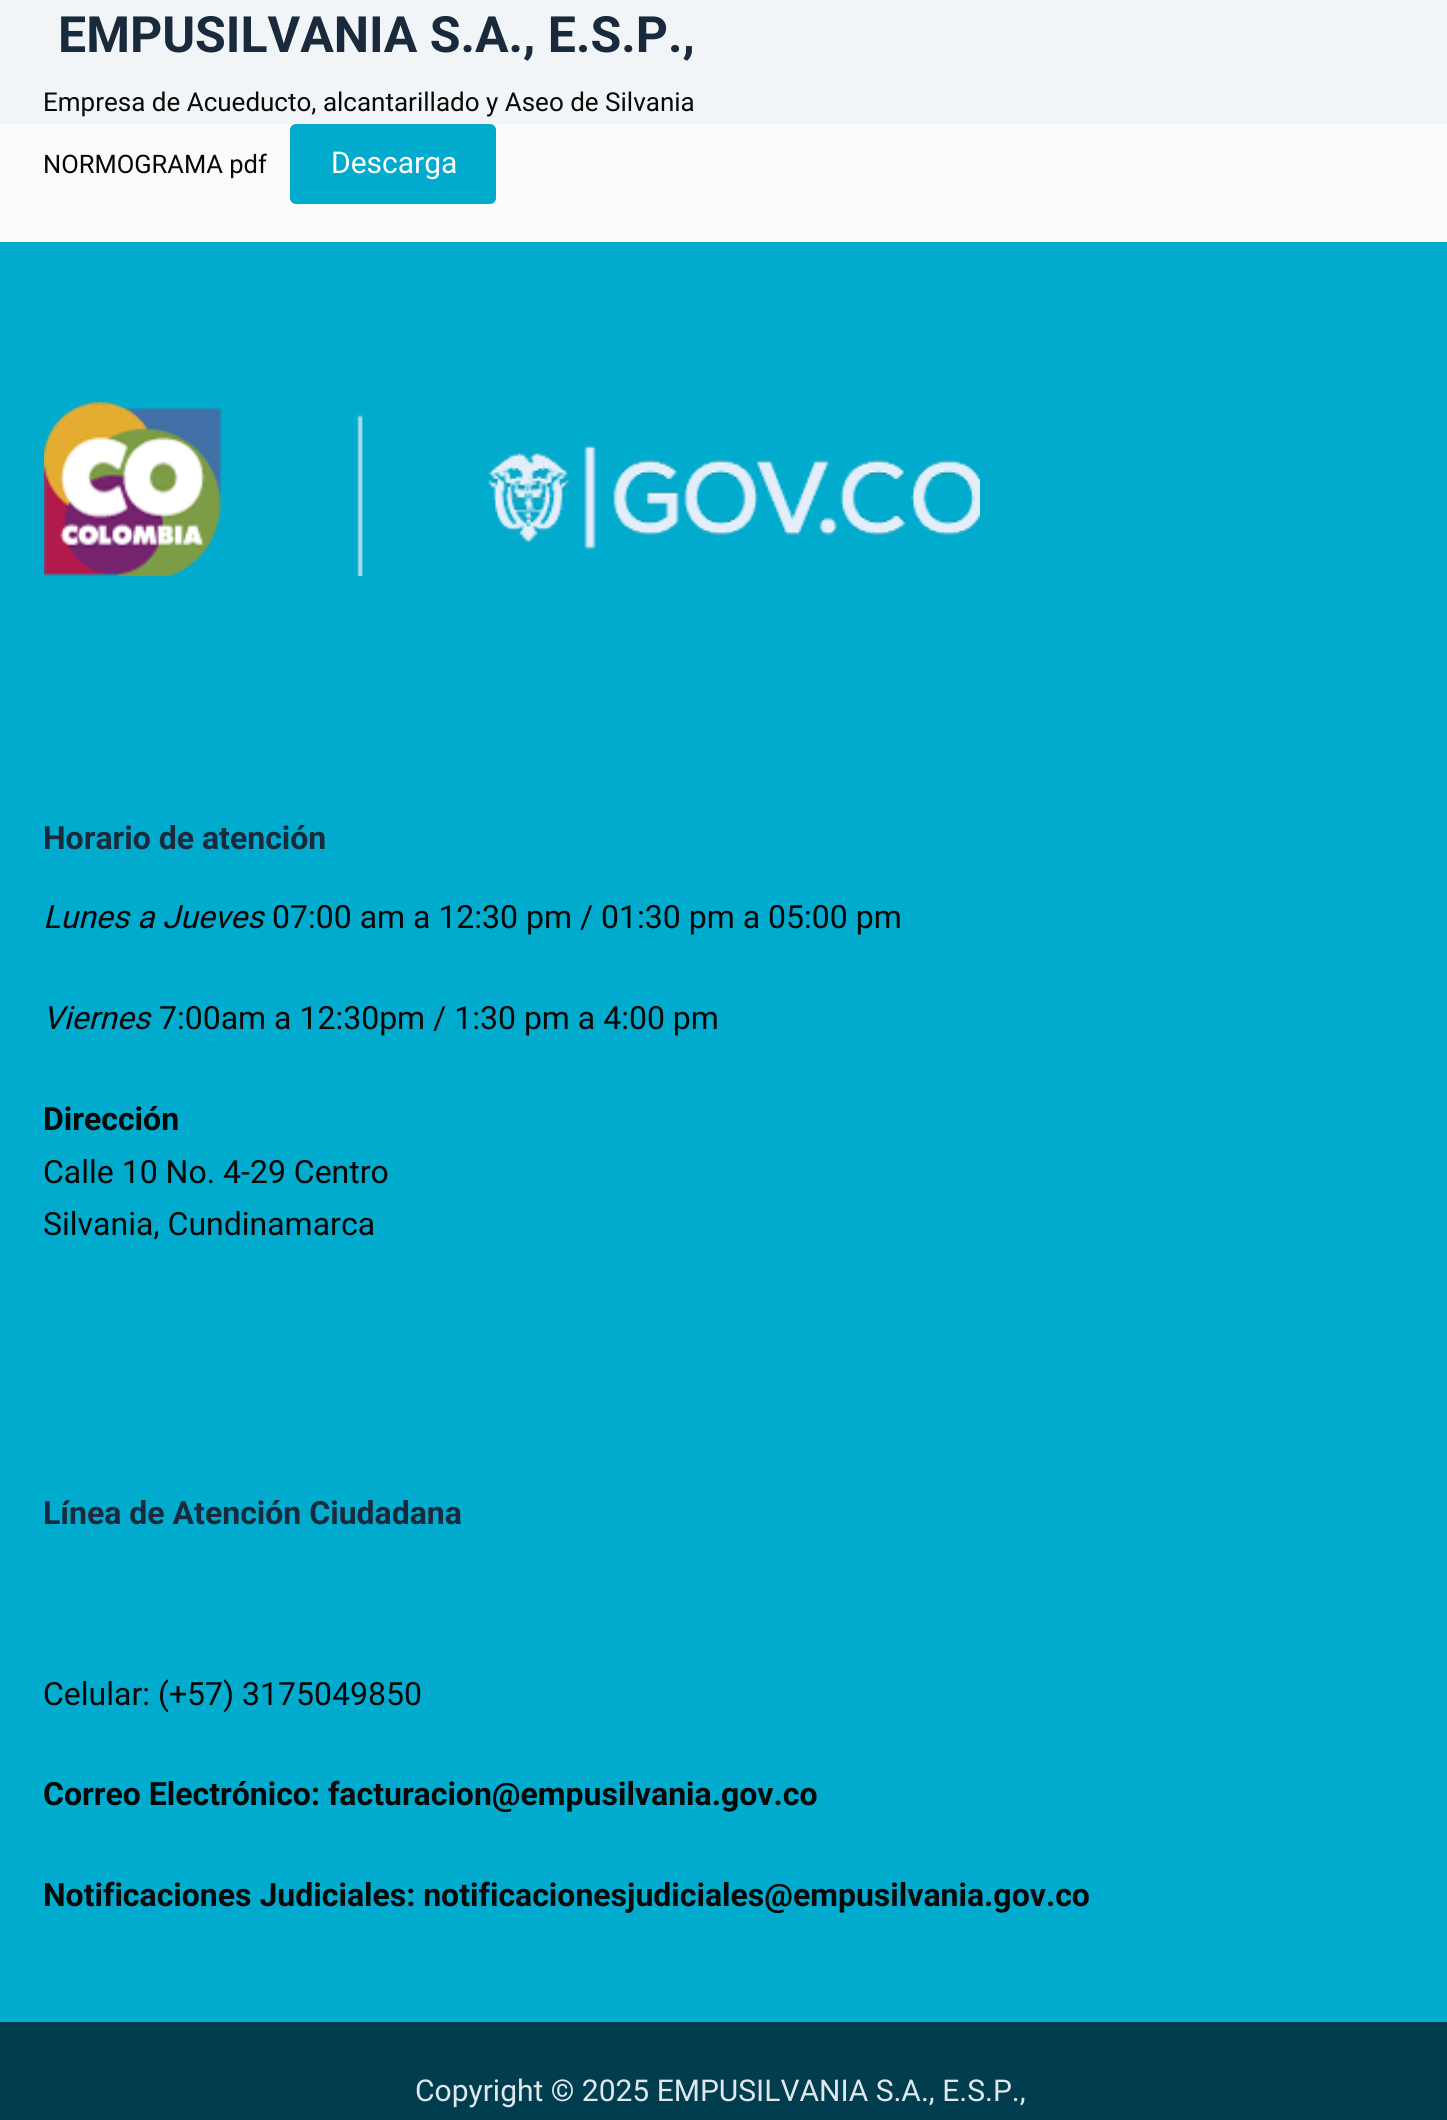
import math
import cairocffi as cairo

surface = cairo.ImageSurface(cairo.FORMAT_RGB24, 1447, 2120)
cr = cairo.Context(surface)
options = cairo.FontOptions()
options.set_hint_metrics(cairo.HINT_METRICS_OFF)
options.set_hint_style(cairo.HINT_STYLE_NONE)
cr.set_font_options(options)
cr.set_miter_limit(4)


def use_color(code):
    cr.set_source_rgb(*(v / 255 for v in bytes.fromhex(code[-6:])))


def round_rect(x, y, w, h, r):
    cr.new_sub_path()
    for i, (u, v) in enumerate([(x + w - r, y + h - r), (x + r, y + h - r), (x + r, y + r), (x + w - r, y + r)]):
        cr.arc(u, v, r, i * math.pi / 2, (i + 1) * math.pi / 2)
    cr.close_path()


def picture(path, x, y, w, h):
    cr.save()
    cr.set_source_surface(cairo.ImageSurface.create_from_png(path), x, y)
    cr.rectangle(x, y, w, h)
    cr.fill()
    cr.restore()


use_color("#fafbfc")
cr.paint()
use_color("#f2f5f7")
cr.rectangle(0, 0, 1447, 124)
cr.fill()
cr.select_font_face("Roboto", cairo.FONT_SLANT_NORMAL, cairo.FONT_WEIGHT_BOLD)
cr.set_font_size(50)
use_color("#192a3d")
cr.move_to(58, 52)
cr.show_text("EMPUSILVANIA S.A., E.S.P.,")
cr.select_font_face("Roboto")
cr.set_font_size(26)
use_color("#080808")
cr.move_to(43, 111)
cr.show_text("Empresa de Acueducto, alcantarillado y Aseo de Silvania")
cr.set_font_size(25.5)
cr.move_to(43, 173)
cr.show_text("NORMOGRAMA pdf")
use_color("#00abce")
round_rect(290, 124, 206, 80, 6)
cr.fill()
cr.set_font_size(30)
use_color("#ffffff")
cr.move_to(331, 173)
cr.show_text("Descarga")
use_color("#00abce")
cr.rectangle(0, 242, 1447, 1780)
cr.fill()
picture("img1.png", 44, 402, 936, 174)
cr.select_font_face("Roboto", cairo.FONT_SLANT_NORMAL, cairo.FONT_WEIGHT_BOLD)
cr.set_font_size(32)
use_color("#192a3d")
cr.move_to(43, 849)
cr.show_text("Horario de atención")
cr.select_font_face("Roboto", cairo.FONT_SLANT_ITALIC)
use_color("#080808")
cr.move_to(43, 928)
cr.show_text("Lunes a Jueves")
cr.select_font_face("Roboto")
cr.move_to(272, 928)
cr.show_text("07:00 am a 12:30 pm / 01:30 pm a 05:00 pm")
cr.select_font_face("Roboto", cairo.FONT_SLANT_ITALIC)
cr.move_to(43, 1029)
cr.show_text("Viernes")
cr.select_font_face("Roboto")
cr.move_to(159, 1029)
cr.show_text("7:00am a 12:30pm / 1:30 pm a 4:00 pm")
cr.select_font_face("Roboto", cairo.FONT_SLANT_NORMAL, cairo.FONT_WEIGHT_BOLD)
cr.move_to(43, 1130)
cr.show_text("Dirección")
cr.select_font_face("Roboto")
cr.move_to(43, 1183)
cr.show_text("Calle 10 No. 4-29 Centro")
cr.move_to(43, 1235)
cr.show_text("Silvania, Cundinamarca")
cr.select_font_face("Roboto", cairo.FONT_SLANT_NORMAL, cairo.FONT_WEIGHT_BOLD)
use_color("#192a3d")
cr.move_to(43, 1524)
cr.show_text("Línea de Atención Ciudadana")
cr.select_font_face("Roboto")
use_color("#080808")
cr.move_to(43, 1705)
cr.show_text("Celular: (+57) 3175049850")
cr.select_font_face("Roboto", cairo.FONT_SLANT_NORMAL, cairo.FONT_WEIGHT_BOLD)
cr.move_to(43, 1805)
cr.show_text("Correo Electrónico: facturacion@empusilvania.gov.co")
cr.move_to(43, 1906)
cr.show_text("Notificaciones Judiciales: notificacionesjudiciales@empusilvania.gov.co")
use_color("#003d4f")
cr.rectangle(0, 2022, 1447, 98)
cr.fill()
cr.select_font_face("Roboto")
cr.set_font_size(30)
use_color("#e1e8ed")
cr.move_to(415, 2101)
cr.show_text("Copyright © 2025 EMPUSILVANIA S.A., E.S.P.,")
surface.write_to_png("result.png")
